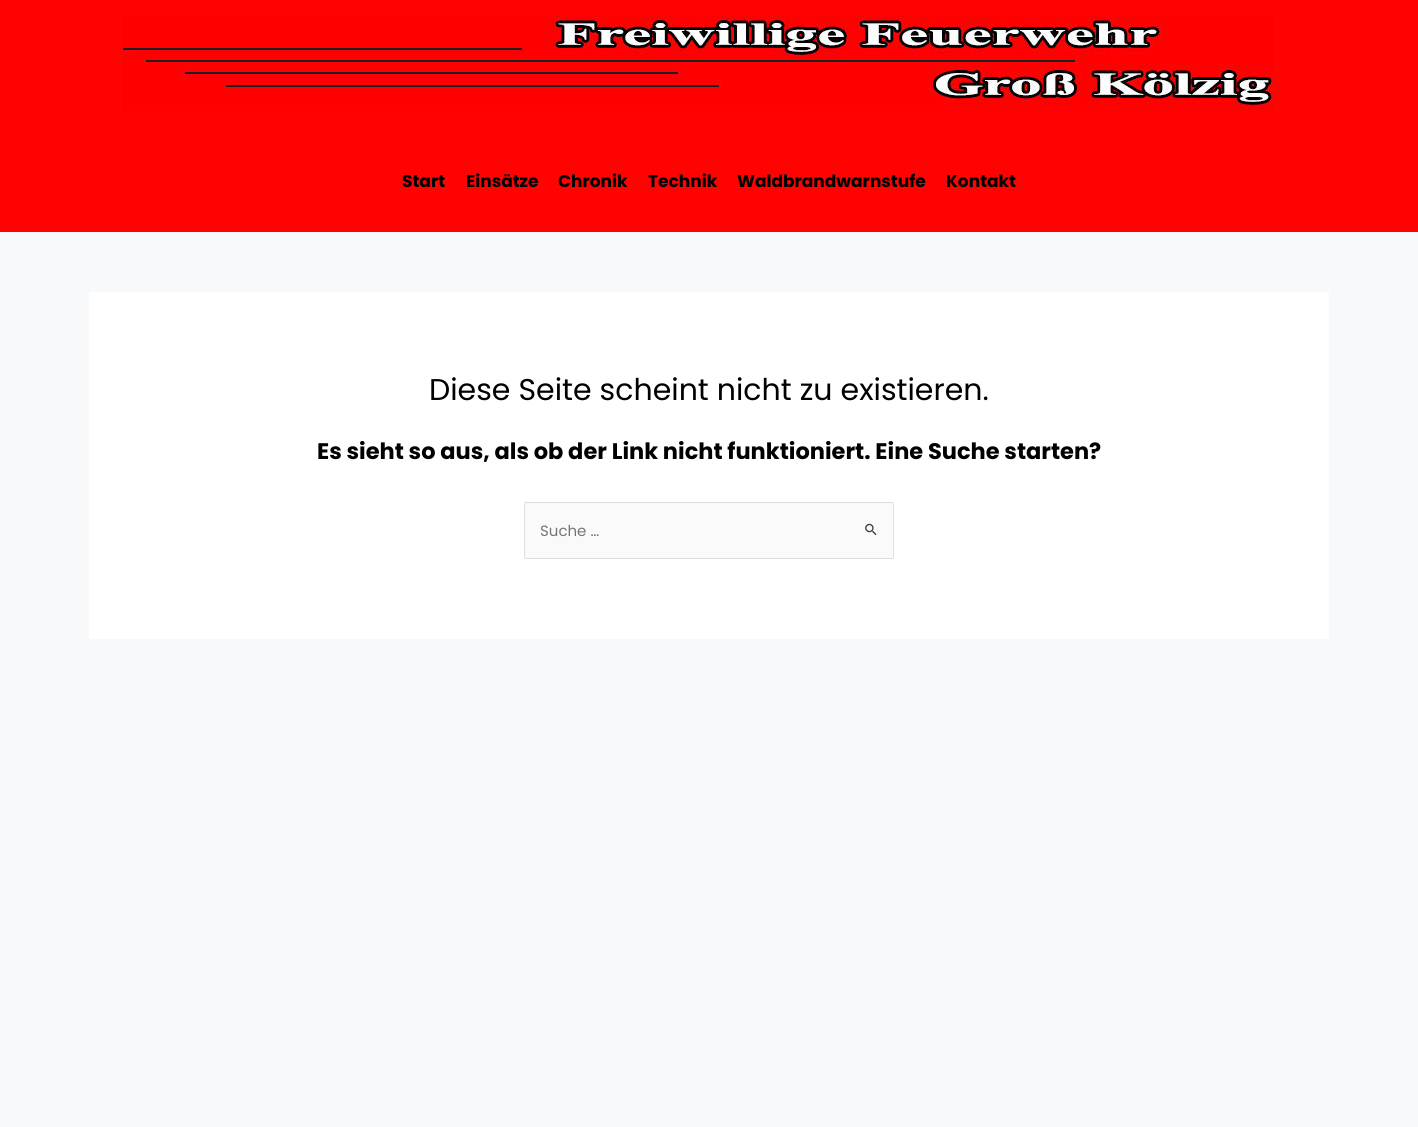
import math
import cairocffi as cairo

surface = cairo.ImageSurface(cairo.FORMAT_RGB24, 1418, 1127)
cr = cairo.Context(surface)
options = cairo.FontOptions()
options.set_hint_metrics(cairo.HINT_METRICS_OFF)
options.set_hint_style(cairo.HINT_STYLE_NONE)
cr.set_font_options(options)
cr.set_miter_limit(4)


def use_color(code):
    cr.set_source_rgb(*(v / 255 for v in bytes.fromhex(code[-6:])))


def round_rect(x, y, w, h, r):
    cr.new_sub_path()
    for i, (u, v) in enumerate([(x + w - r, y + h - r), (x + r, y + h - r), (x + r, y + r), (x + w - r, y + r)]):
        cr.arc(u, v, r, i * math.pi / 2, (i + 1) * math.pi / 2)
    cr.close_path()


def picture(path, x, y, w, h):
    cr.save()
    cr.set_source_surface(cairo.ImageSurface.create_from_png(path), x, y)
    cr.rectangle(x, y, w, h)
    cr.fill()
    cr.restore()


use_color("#f7f9fb")
cr.paint()
use_color("#ff0303")
cr.rectangle(0, 0, 1418, 232)
cr.fill()
picture("img1.png", 122, 15, 1152, 96)
cr.select_font_face("Poppins", cairo.FONT_SLANT_NORMAL, cairo.FONT_WEIGHT_BOLD)
cr.set_font_size(17)
use_color("#000000")
cr.move_to(402, 187)
cr.show_text("Start")
cr.move_to(466, 187)
cr.show_text("Einsätze")
cr.move_to(558, 187)
cr.show_text("Chronik")
cr.move_to(648, 187)
cr.show_text("Technik")
cr.move_to(737, 187)
cr.show_text("Waldbrandwarnstufe")
cr.move_to(946, 187)
cr.show_text("Kontakt")
use_color("#ffffff")
cr.rectangle(89, 292, 1240, 347)
cr.fill()
cr.select_font_face("Poppins")
cr.set_font_size(30)
use_color("#000000")
cr.move_to(429, 400)
cr.show_text("Diese Seite scheint nicht zu existieren.")
cr.select_font_face("Poppins", cairo.FONT_SLANT_NORMAL, cairo.FONT_WEIGHT_BOLD)
cr.set_font_size(22.5)
cr.move_to(317, 459)
cr.show_text("Es sieht so aus, als ob der Link nicht funktioniert. Eine Suche starten?")
use_color("#fafafa")
round_rect(524.5, 502.5, 369, 56, 1.5)
cr.fill_preserve()
use_color("#dddddd")
cr.set_line_width(1)
cr.stroke()
cr.select_font_face("Poppins")
cr.set_font_size(15)
use_color("#757575")
cr.move_to(540, 536)
cr.show_text("Suche …")
picture("img2.png", 865, 523, 12, 13)
surface.write_to_png("result.png")
